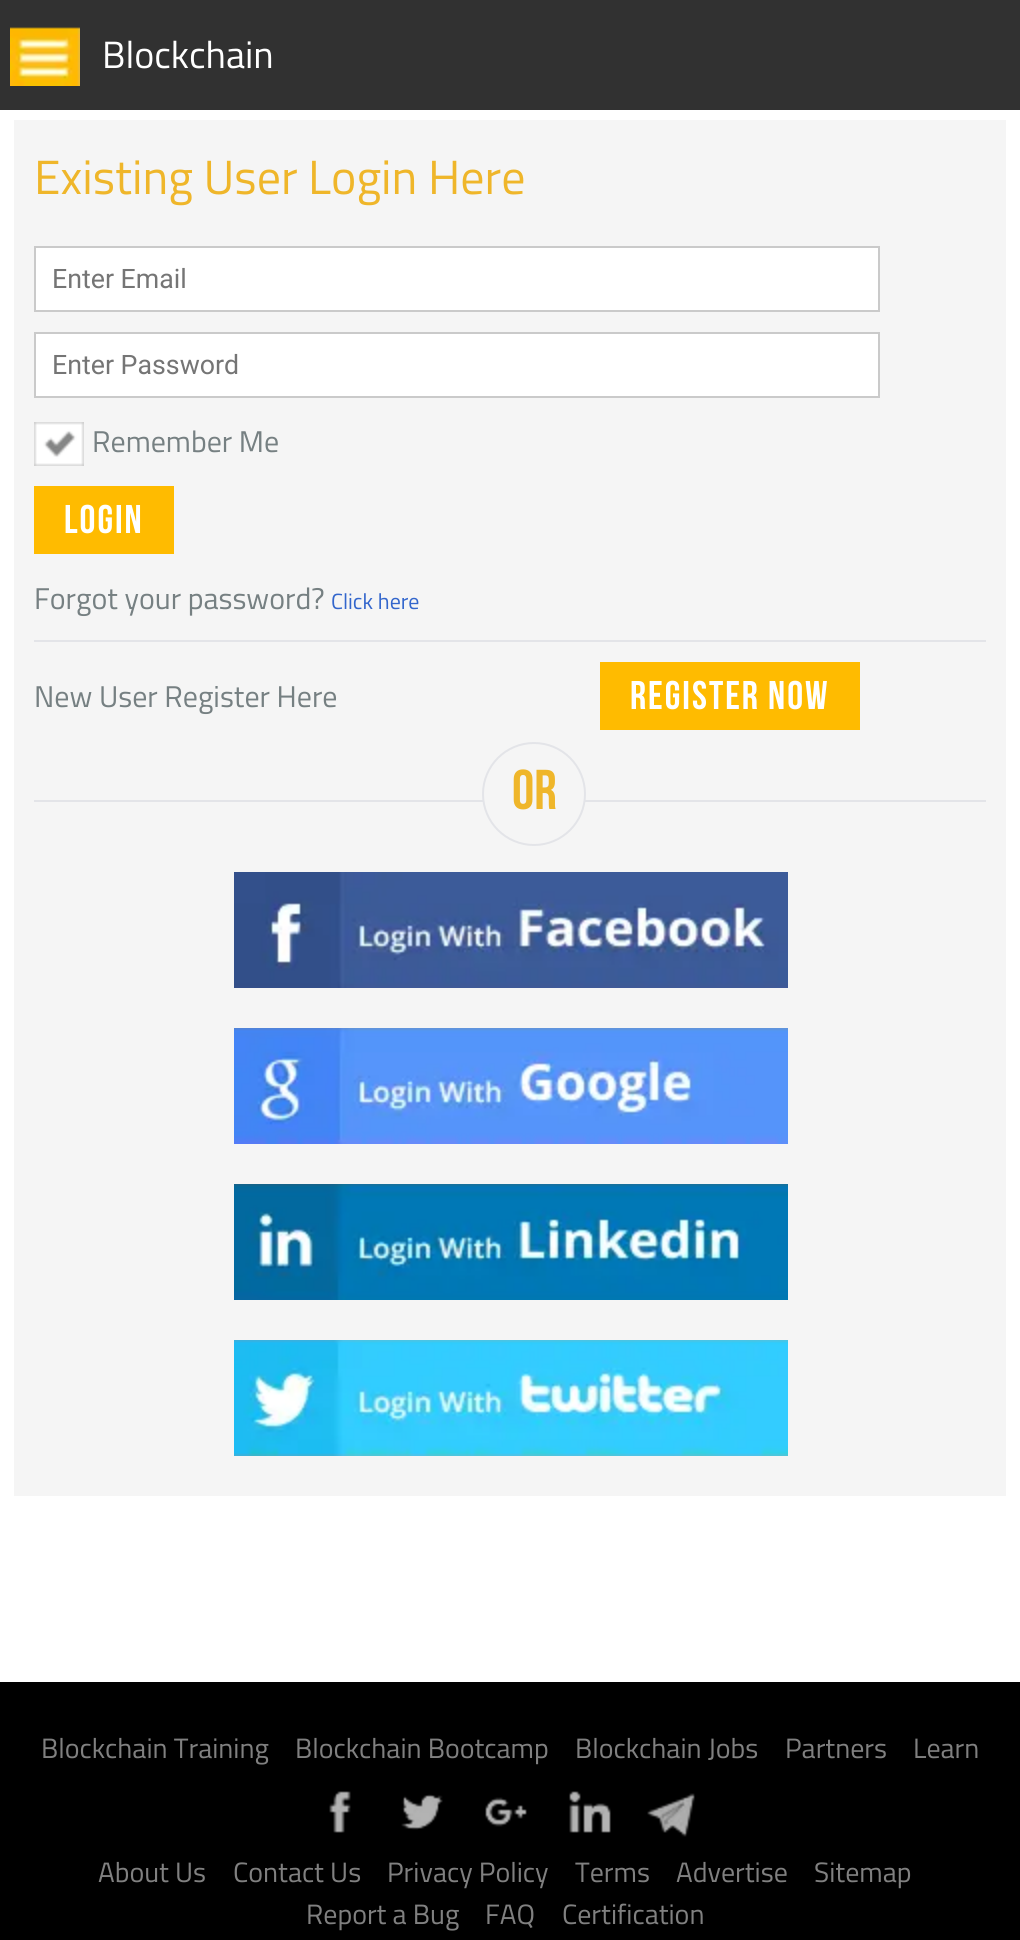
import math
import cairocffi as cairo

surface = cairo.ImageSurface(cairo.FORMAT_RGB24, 1020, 1940)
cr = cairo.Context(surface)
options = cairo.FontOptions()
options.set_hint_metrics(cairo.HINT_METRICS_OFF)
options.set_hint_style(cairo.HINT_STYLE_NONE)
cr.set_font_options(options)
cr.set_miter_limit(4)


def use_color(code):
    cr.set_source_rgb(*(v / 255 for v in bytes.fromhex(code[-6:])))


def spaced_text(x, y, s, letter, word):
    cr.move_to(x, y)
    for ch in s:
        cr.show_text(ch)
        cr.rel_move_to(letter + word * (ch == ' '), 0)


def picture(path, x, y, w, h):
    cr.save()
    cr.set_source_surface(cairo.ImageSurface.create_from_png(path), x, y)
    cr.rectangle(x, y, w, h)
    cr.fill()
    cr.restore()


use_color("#ffffff")
cr.paint()
use_color("#313131")
cr.rectangle(0, 0, 1020, 110)
cr.fill()
picture("img1.png", 10, 27, 70, 59)
cr.select_font_face("Titillium Web")
cr.set_font_size(38)
use_color("#ffffff")
cr.move_to(102, 68)
cr.show_text("Blockchain")
use_color("#f5f5f5")
cr.rectangle(14, 120, 992, 1376)
cr.fill()
use_color("#e3e4e8")
cr.rectangle(34, 800, 952, 2)
cr.fill()
cr.set_font_size(48)
use_color("#efb62a")
cr.move_to(34, 194)
cr.show_text("Existing User Login Here")
use_color("#ffffff")
cr.rectangle(35, 247, 844, 64)
cr.fill_preserve()
use_color("#cacaca")
cr.stroke()
cr.select_font_face("Roboto")
cr.set_font_size(26.75)
use_color("#757575")
cr.move_to(52, 288)
cr.show_text("Enter Email")
use_color("#ffffff")
cr.rectangle(35, 333, 844, 64)
cr.fill_preserve()
use_color("#cacaca")
cr.stroke()
use_color("#757575")
cr.move_to(52, 374)
cr.show_text("Enter Password")
picture("img2.png", 34, 422, 50, 44)
cr.select_font_face("Titillium Web")
cr.set_font_size(30)
use_color("#768082")
cr.move_to(92, 452)
cr.show_text("Remember Me")
use_color("#ffbb00")
cr.rectangle(34, 486, 140, 68)
cr.fill()
cr.select_font_face("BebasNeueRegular")
cr.set_font_size(40)
use_color("#ffffff")
spaced_text(64, 533, "Login", 2, 0)
cr.select_font_face("Titillium Web")
cr.set_font_size(30)
use_color("#768082")
cr.move_to(34, 609)
cr.show_text("Forgot your password?")
cr.set_font_size(22)
use_color("#3366cc")
cr.move_to(331, 609)
cr.show_text("Click here")
use_color("#e3e4e8")
cr.rectangle(34, 640, 952, 2)
cr.fill()
cr.set_font_size(30)
use_color("#768082")
cr.move_to(34, 707)
cr.show_text("New User Register Here")
use_color("#ffbb00")
cr.rectangle(600, 662, 260, 68)
cr.fill()
cr.select_font_face("BebasNeueRegular")
cr.set_font_size(40)
use_color("#ffffff")
spaced_text(630, 709, "Register Now", 2, 0)
use_color("#f5f5f5")
cr.new_path()
cr.arc(534, 794, 51, 0, 2 * math.pi)
cr.fill_preserve()
use_color("#e3e4e8")
cr.stroke()
cr.set_font_size(56)
use_color("#efb62a")
cr.move_to(512, 809)
cr.show_text("OR")
picture("img3.png", 234, 872, 554, 116)
picture("img4.png", 234, 1028, 554, 116)
picture("img5.png", 234, 1184, 554, 116)
picture("img6.png", 234, 1340, 554, 116)
use_color("#000000")
cr.rectangle(0, 1682, 1020, 258)
cr.fill()
cr.select_font_face("Titillium Web")
cr.set_font_size(28)
use_color("#808080")
cr.move_to(41, 1758)
cr.show_text("Blockchain Training")
cr.move_to(295, 1758)
cr.show_text("Blockchain Bootcamp")
cr.move_to(575, 1758)
cr.show_text("Blockchain Jobs")
cr.move_to(785, 1758)
cr.show_text("Partners")
cr.move_to(913, 1758)
cr.show_text("Learn")
picture("img7.png", 329, 1791, 22, 42)
picture("img8.png", 401, 1794, 42, 36)
picture("img9.png", 485, 1797, 42, 30)
picture("img10.png", 569, 1791, 42, 42)
picture("img11.png", 647, 1793, 48, 44)
cr.move_to(98, 1882)
cr.show_text("About Us")
cr.move_to(233, 1882)
cr.show_text("Contact Us")
cr.move_to(387, 1882)
cr.show_text("Privacy Policy")
cr.move_to(575, 1882)
cr.show_text("Terms")
cr.move_to(676, 1882)
cr.show_text("Advertise")
cr.move_to(814, 1882)
cr.show_text("Sitemap")
cr.move_to(306, 1924)
cr.show_text("Report a Bug")
cr.move_to(485, 1924)
cr.show_text("FAQ")
cr.move_to(562, 1924)
cr.show_text("Certification")
surface.write_to_png("result.png")
